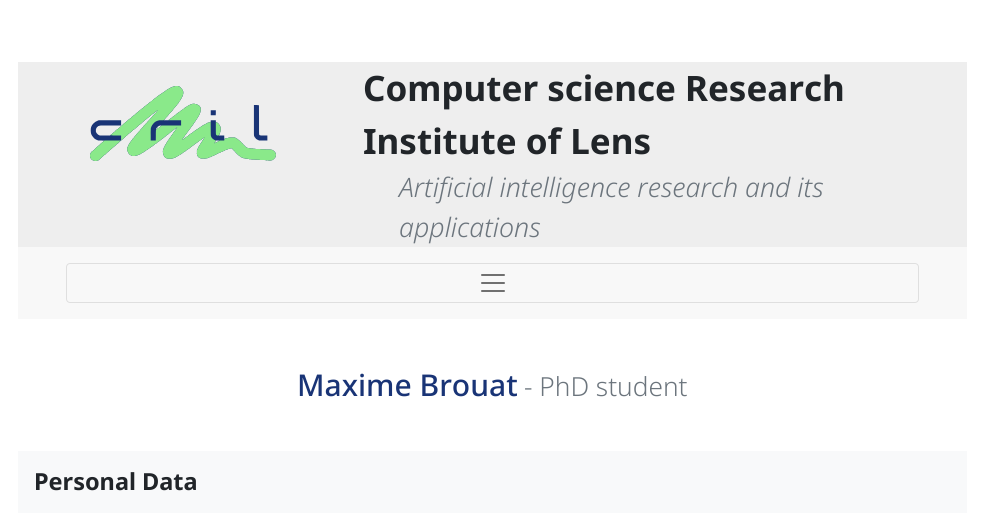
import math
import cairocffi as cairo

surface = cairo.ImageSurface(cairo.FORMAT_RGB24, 985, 513)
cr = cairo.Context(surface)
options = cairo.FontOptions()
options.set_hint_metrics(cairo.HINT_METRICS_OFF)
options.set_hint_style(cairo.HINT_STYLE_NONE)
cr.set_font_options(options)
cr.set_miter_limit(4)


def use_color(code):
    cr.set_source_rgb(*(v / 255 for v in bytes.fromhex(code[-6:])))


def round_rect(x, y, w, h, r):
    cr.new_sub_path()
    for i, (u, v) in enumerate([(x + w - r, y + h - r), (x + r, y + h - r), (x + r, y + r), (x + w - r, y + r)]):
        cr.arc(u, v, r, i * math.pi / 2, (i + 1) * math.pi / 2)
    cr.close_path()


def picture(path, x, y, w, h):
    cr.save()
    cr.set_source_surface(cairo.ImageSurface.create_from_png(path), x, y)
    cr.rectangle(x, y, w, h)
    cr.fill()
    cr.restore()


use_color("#ffffff")
cr.paint()
use_color("#eeeeee")
cr.rectangle(18, 62, 949, 185)
cr.fill()
picture("img1.png", 90, 86, 186, 75)
cr.select_font_face("Noto Sans", cairo.FONT_SLANT_NORMAL, cairo.FONT_WEIGHT_BOLD)
cr.set_font_size(35)
use_color("#212529")
cr.move_to(363, 101)
cr.show_text("Computer science Research")
cr.move_to(363, 154)
cr.show_text("Institute of Lens")
cr.select_font_face("Noto Sans Light", cairo.FONT_SLANT_ITALIC)
cr.set_font_size(26.75)
use_color("#6c757d")
cr.move_to(399, 197)
cr.show_text("Artificial intelligence research and its")
cr.move_to(399, 237)
cr.show_text("applications")
use_color("#f8f8f8")
cr.rectangle(18, 247, 949, 72)
cr.fill()
round_rect(66.5, 263.5, 852, 39, 3.5)
use_color("#dfdfdf")
cr.set_line_width(1)
cr.stroke()
picture("img2.png", 481, 274, 24, 18)
cr.select_font_face("Noto Sans Medium")
cr.set_font_size(30)
use_color("#193476")
cr.move_to(297, 396)
cr.show_text("Maxime Brouat")
cr.select_font_face("Noto Sans Light")
cr.set_font_size(26.25)
use_color("#6c757d")
cr.move_to(524, 396)
cr.show_text("- PhD student")
use_color("#f8f9fa")
cr.rectangle(18, 451, 949, 62)
cr.fill()
cr.select_font_face("Noto Sans", cairo.FONT_SLANT_NORMAL, cairo.FONT_WEIGHT_BOLD)
cr.set_font_size(23.5)
use_color("#212529")
cr.move_to(34, 490)
cr.show_text("Personal Data")
surface.write_to_png("result.png")
